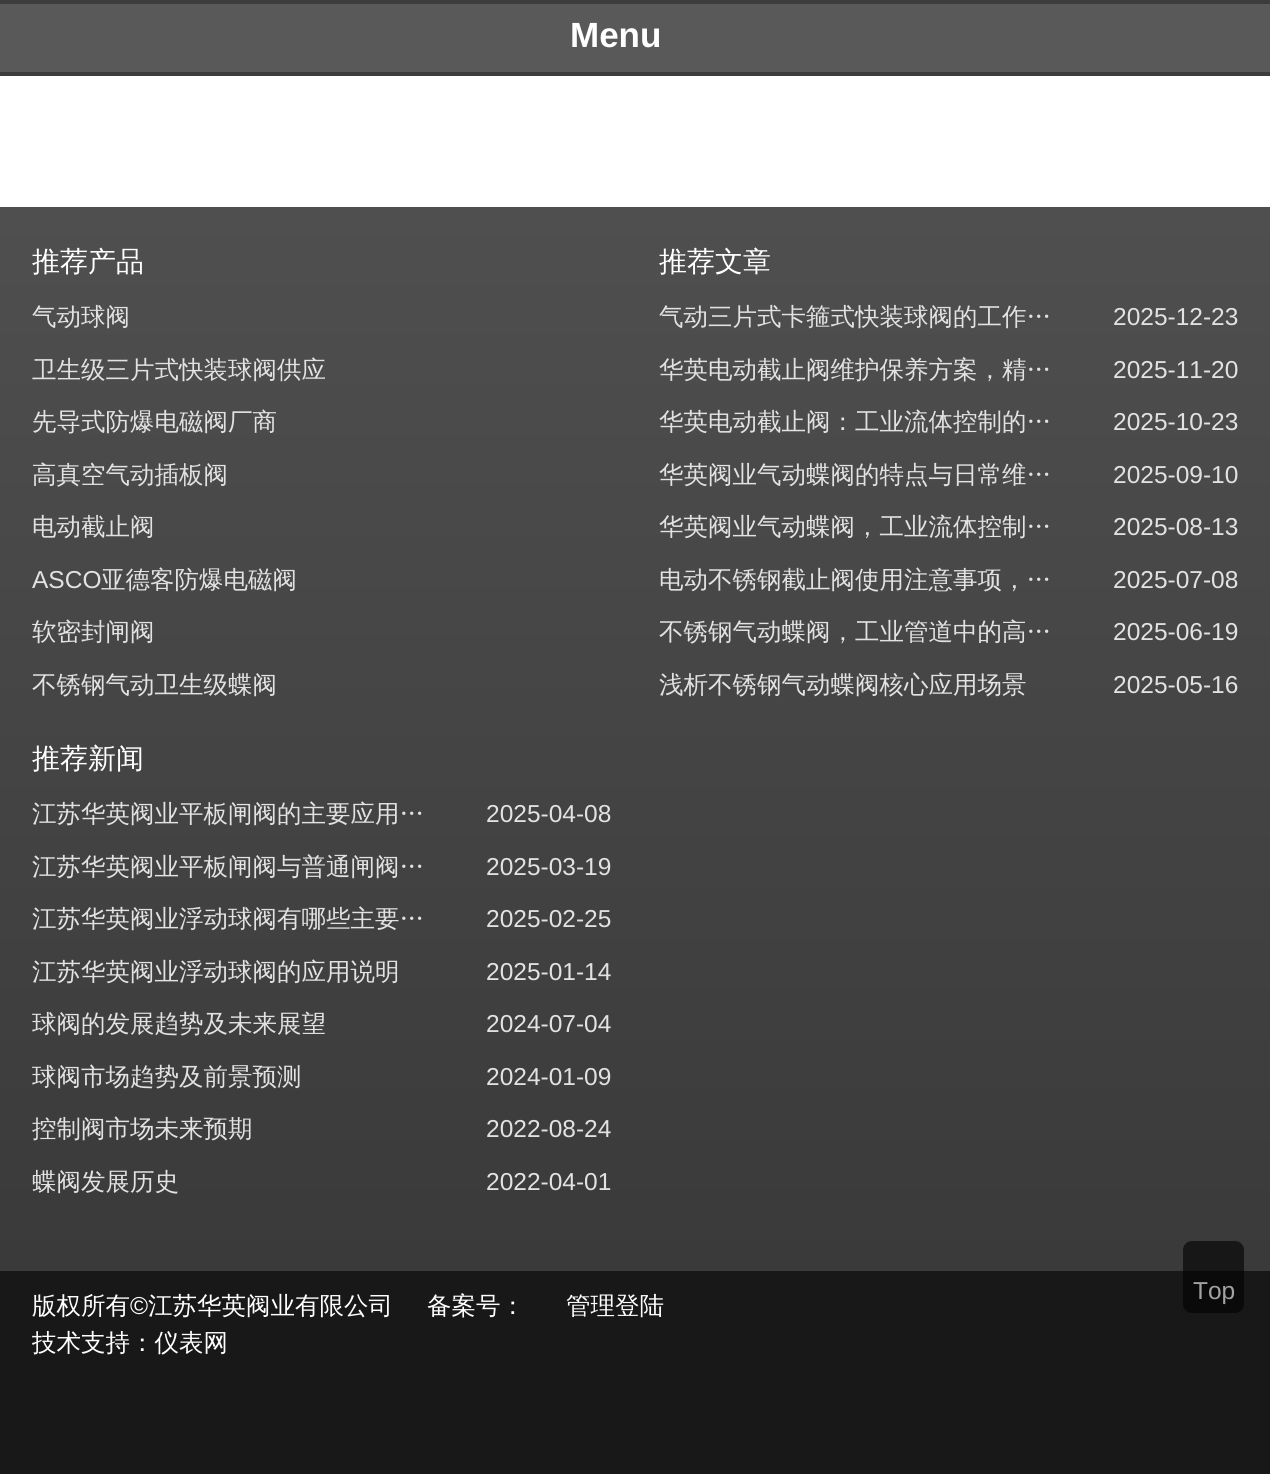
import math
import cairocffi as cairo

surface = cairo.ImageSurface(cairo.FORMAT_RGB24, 1270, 1474)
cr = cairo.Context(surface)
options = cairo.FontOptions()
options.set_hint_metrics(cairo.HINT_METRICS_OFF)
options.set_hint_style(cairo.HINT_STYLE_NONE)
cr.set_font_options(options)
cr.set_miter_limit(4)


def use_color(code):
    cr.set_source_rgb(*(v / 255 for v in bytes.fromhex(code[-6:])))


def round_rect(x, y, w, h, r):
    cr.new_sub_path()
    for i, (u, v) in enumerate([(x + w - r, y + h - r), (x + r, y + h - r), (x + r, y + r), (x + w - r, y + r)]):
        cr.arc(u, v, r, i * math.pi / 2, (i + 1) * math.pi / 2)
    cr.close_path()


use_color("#ffffff")
cr.paint()
use_color("#595959")
cr.rectangle(0, 4, 1270, 68)
cr.fill()
use_color("#3c3c3c")
cr.rectangle(0, 0, 1270, 4)
cr.fill()
cr.rectangle(0, 72, 1270, 4)
cr.fill()
cr.select_font_face("Liberation Sans", cairo.FONT_SLANT_NORMAL, cairo.FONT_WEIGHT_BOLD)
cr.set_font_size(35)
use_color("#ffffff")
cr.move_to(570, 47)
cr.show_text("Menu")
gradient = cairo.LinearGradient(635, 206, 635, 1271)
gradient.add_color_stop_rgba(0, 0.31, 0.31, 0.31, 1)
gradient.add_color_stop_rgba(1, 0.227, 0.227, 0.227, 1)
cr.set_source(gradient)
cr.rectangle(0, 207, 1270, 1064)
cr.fill()
cr.select_font_face("WenQuanYi Zen Hei Medium")
cr.set_font_size(28)
use_color("#ffffff")
cr.move_to(32, 271)
cr.show_text("推荐产品")
cr.set_font_size(24.5)
use_color("#e2e2e2")
cr.move_to(32, 325)
cr.show_text("气动球阀")
cr.move_to(32, 378)
cr.show_text("卫生级三片式快装球阀供应")
cr.move_to(32, 430)
cr.show_text("先导式防爆电磁阀厂商")
cr.move_to(32, 483)
cr.show_text("高真空气动插板阀")
cr.move_to(32, 535)
cr.show_text("电动截止阀")
cr.select_font_face("Liberation Sans")
cr.move_to(32, 588)
cr.show_text("ASCO")
cr.select_font_face("WenQuanYi Zen Hei Medium")
cr.move_to(101, 588)
cr.show_text("亚德客防爆电磁阀")
cr.move_to(32, 640)
cr.show_text("软密封闸阀")
cr.move_to(32, 693)
cr.show_text("不锈钢气动卫生级蝶阀")
cr.set_font_size(28)
use_color("#ffffff")
cr.move_to(659, 271)
cr.show_text("推荐文章")
cr.set_font_size(24.5)
use_color("#e2e2e2")
cr.move_to(659, 325)
cr.show_text("气动三片式卡箍式快装球阀的工作…")
cr.select_font_face("Liberation Sans")
cr.move_to(1113, 325)
cr.show_text("2025-12-23")
cr.select_font_face("WenQuanYi Zen Hei Medium")
cr.move_to(659, 378)
cr.show_text("华英电动截止阀维护保养方案，精…")
cr.select_font_face("Liberation Sans")
cr.move_to(1113, 378)
cr.show_text("2025-11-20")
cr.select_font_face("WenQuanYi Zen Hei Medium")
cr.move_to(659, 430)
cr.show_text("华英电动截止阀：工业流体控制的…")
cr.select_font_face("Liberation Sans")
cr.move_to(1113, 430)
cr.show_text("2025-10-23")
cr.select_font_face("WenQuanYi Zen Hei Medium")
cr.move_to(659, 483)
cr.show_text("华英阀业气动蝶阀的特点与日常维…")
cr.select_font_face("Liberation Sans")
cr.move_to(1113, 483)
cr.show_text("2025-09-10")
cr.select_font_face("WenQuanYi Zen Hei Medium")
cr.move_to(659, 535)
cr.show_text("华英阀业气动蝶阀，工业流体控制…")
cr.select_font_face("Liberation Sans")
cr.move_to(1113, 535)
cr.show_text("2025-08-13")
cr.select_font_face("WenQuanYi Zen Hei Medium")
cr.move_to(659, 588)
cr.show_text("电动不锈钢截止阀使用注意事项，…")
cr.select_font_face("Liberation Sans")
cr.move_to(1113, 588)
cr.show_text("2025-07-08")
cr.select_font_face("WenQuanYi Zen Hei Medium")
cr.move_to(659, 640)
cr.show_text("不锈钢气动蝶阀，工业管道中的高…")
cr.select_font_face("Liberation Sans")
cr.move_to(1113, 640)
cr.show_text("2025-06-19")
cr.select_font_face("WenQuanYi Zen Hei Medium")
cr.move_to(659, 693)
cr.show_text("浅析不锈钢气动蝶阀核心应用场景")
cr.select_font_face("Liberation Sans")
cr.move_to(1113, 693)
cr.show_text("2025-05-16")
cr.select_font_face("WenQuanYi Zen Hei Medium")
cr.set_font_size(28)
use_color("#ffffff")
cr.move_to(32, 768)
cr.show_text("推荐新闻")
cr.set_font_size(24.5)
use_color("#e2e2e2")
cr.move_to(32, 822)
cr.show_text("江苏华英阀业平板闸阀的主要应用…")
cr.select_font_face("Liberation Sans")
cr.move_to(486, 822)
cr.show_text("2025-04-08")
cr.select_font_face("WenQuanYi Zen Hei Medium")
cr.move_to(32, 875)
cr.show_text("江苏华英阀业平板闸阀与普通闸阀…")
cr.select_font_face("Liberation Sans")
cr.move_to(486, 875)
cr.show_text("2025-03-19")
cr.select_font_face("WenQuanYi Zen Hei Medium")
cr.move_to(32, 927)
cr.show_text("江苏华英阀业浮动球阀有哪些主要…")
cr.select_font_face("Liberation Sans")
cr.move_to(486, 927)
cr.show_text("2025-02-25")
cr.select_font_face("WenQuanYi Zen Hei Medium")
cr.move_to(32, 980)
cr.show_text("江苏华英阀业浮动球阀的应用说明")
cr.select_font_face("Liberation Sans")
cr.move_to(486, 980)
cr.show_text("2025-01-14")
cr.select_font_face("WenQuanYi Zen Hei Medium")
cr.move_to(32, 1032)
cr.show_text("球阀的发展趋势及未来展望")
cr.select_font_face("Liberation Sans")
cr.move_to(486, 1032)
cr.show_text("2024-07-04")
cr.select_font_face("WenQuanYi Zen Hei Medium")
cr.move_to(32, 1085)
cr.show_text("球阀市场趋势及前景预测")
cr.select_font_face("Liberation Sans")
cr.move_to(486, 1085)
cr.show_text("2024-01-09")
cr.select_font_face("WenQuanYi Zen Hei Medium")
cr.move_to(32, 1137)
cr.show_text("控制阀市场未来预期")
cr.select_font_face("Liberation Sans")
cr.move_to(486, 1137)
cr.show_text("2022-08-24")
cr.select_font_face("WenQuanYi Zen Hei Medium")
cr.move_to(32, 1190)
cr.show_text("蝶阀发展历史")
cr.select_font_face("Liberation Sans")
cr.move_to(486, 1190)
cr.show_text("2022-04-01")
use_color("#181818")
cr.rectangle(0, 1271, 1270, 203)
cr.fill()
cr.select_font_face("WenQuanYi Zen Hei Medium")
use_color("#ffffff")
cr.move_to(32, 1314)
cr.show_text("版权所有")
cr.select_font_face("Liberation Sans")
cr.move_to(130, 1314)
cr.show_text("©")
cr.select_font_face("WenQuanYi Zen Hei Medium")
cr.move_to(148, 1314)
cr.show_text("江苏华英阀业有限公司")
cr.move_to(427, 1314)
cr.show_text("备案号：")
cr.move_to(566, 1314)
cr.show_text("管理登陆")
cr.move_to(32, 1351)
cr.show_text("技术支持：仪表网")
cr.set_source_rgba(0, 0, 0, 0.6)
round_rect(1183, 1241, 61, 72, 9)
cr.fill()
cr.select_font_face("Liberation Sans")
use_color("#a3a3a3")
cr.move_to(1193, 1299)
cr.show_text("Top")
surface.write_to_png("result.png")
